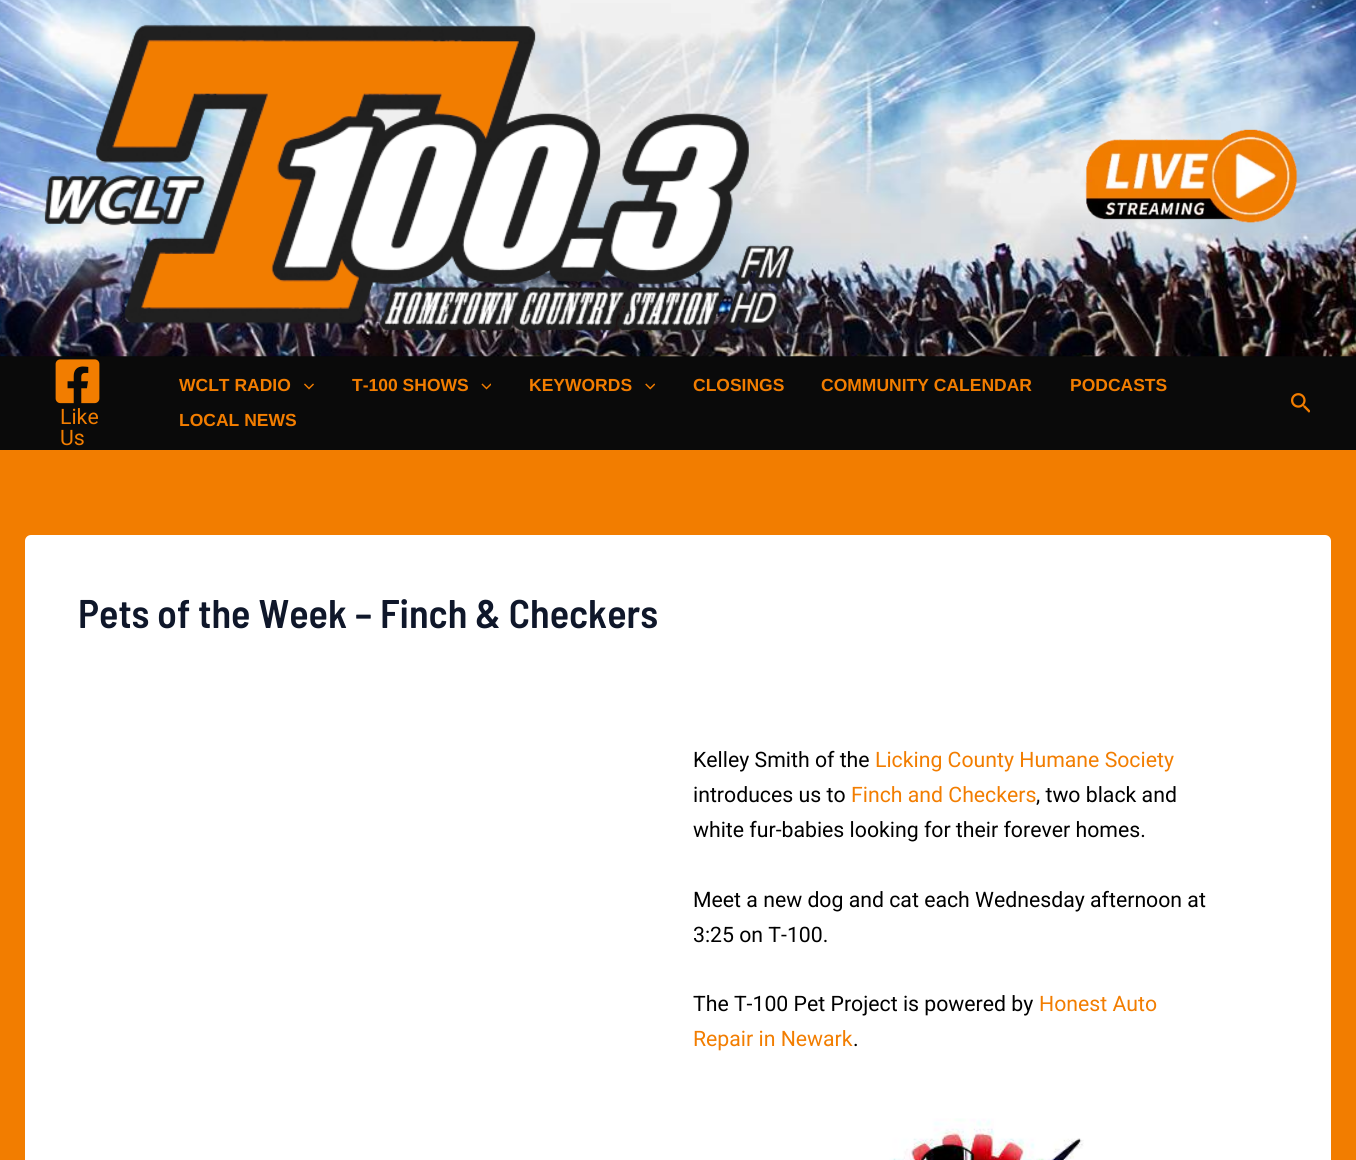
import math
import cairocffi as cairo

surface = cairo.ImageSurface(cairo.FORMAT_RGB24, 1356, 1160)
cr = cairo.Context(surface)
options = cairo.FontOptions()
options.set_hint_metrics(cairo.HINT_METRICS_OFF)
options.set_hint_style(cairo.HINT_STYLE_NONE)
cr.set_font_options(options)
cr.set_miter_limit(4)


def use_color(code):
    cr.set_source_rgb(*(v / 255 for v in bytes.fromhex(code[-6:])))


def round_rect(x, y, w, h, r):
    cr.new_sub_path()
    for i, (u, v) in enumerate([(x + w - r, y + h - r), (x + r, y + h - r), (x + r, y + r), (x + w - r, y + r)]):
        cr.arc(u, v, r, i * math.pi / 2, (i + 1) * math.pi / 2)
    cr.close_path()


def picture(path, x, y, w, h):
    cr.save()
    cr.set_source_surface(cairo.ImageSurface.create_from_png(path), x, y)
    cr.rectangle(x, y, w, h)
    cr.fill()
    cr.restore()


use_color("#f27d00")
cr.paint()
use_color("#0a0a0a")
cr.rectangle(0, 356, 1356, 94)
cr.fill()
picture("img1.png", 0, 0, 1356, 357)
picture("img2.png", 44, 24, 750, 308)
picture("img3.png", 1085, 129, 213, 94)
cr.select_font_face("Liberation Sans", cairo.FONT_SLANT_NORMAL, cairo.FONT_WEIGHT_BOLD)
cr.set_font_size(17.5)
use_color("#f27d00")
cr.move_to(179, 391)
cr.show_text("WCLT RADIO")
picture("img4.png", 304, 383, 10, 7)
cr.move_to(352, 391)
cr.show_text("T-100 SHOWS")
picture("img5.png", 481, 383, 10, 7)
cr.move_to(529, 391)
cr.show_text("KEYWORDS")
picture("img6.png", 645, 383, 10, 7)
cr.move_to(693, 391)
cr.show_text("CLOSINGS")
cr.move_to(821, 391)
cr.show_text("COMMUNITY CALENDAR")
cr.move_to(1070, 391)
cr.show_text("PODCASTS")
cr.move_to(179, 426)
cr.show_text("LOCAL NEWS")
picture("img7.png", 1291, 393, 19, 20)
picture("img8.png", 55, 359, 45, 45)
cr.select_font_face("Roboto")
cr.set_font_size(21.25)
cr.move_to(60, 424)
cr.show_text("Like")
cr.move_to(60, 445)
cr.show_text("Us")
use_color("#ffffff")
round_rect(25, 535, 1306, 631, 6)
cr.fill()
cr.select_font_face("Barlow Semi Condensed SemiBold")
cr.set_font_size(40)
use_color("#0f172a")
cr.move_to(78, 628)
cr.show_text("Pets of the Week – Finch & Checkers")
cr.select_font_face("Roboto")
cr.set_font_size(21.25)
use_color("#000000")
cr.move_to(693, 767)
cr.show_text("Kelley Smith of the")
use_color("#f27d00")
cr.move_to(875, 767)
cr.show_text("Licking County Humane Society")
use_color("#000000")
cr.move_to(693, 802)
cr.show_text("introduces us to")
use_color("#f27d00")
cr.move_to(851, 802)
cr.show_text("Finch and Checkers")
use_color("#000000")
cr.move_to(1036, 802)
cr.show_text(", two black and")
cr.move_to(693, 837)
cr.show_text("white fur-babies looking for their forever homes.")
cr.move_to(693, 907)
cr.show_text("Meet a new dog and cat each Wednesday afternoon at")
cr.move_to(693, 942)
cr.show_text("3:25 on T-100.")
cr.move_to(693, 1011)
cr.show_text("The T-100 Pet Project is powered by")
use_color("#f27d00")
cr.move_to(1039, 1011)
cr.show_text("Honest Auto")
cr.move_to(693, 1046)
cr.show_text("Repair in Newark")
use_color("#000000")
cr.move_to(853, 1046)
cr.show_text(".")
picture("img9.png", 889, 1118, 195, 42)
surface.write_to_png("result.png")
